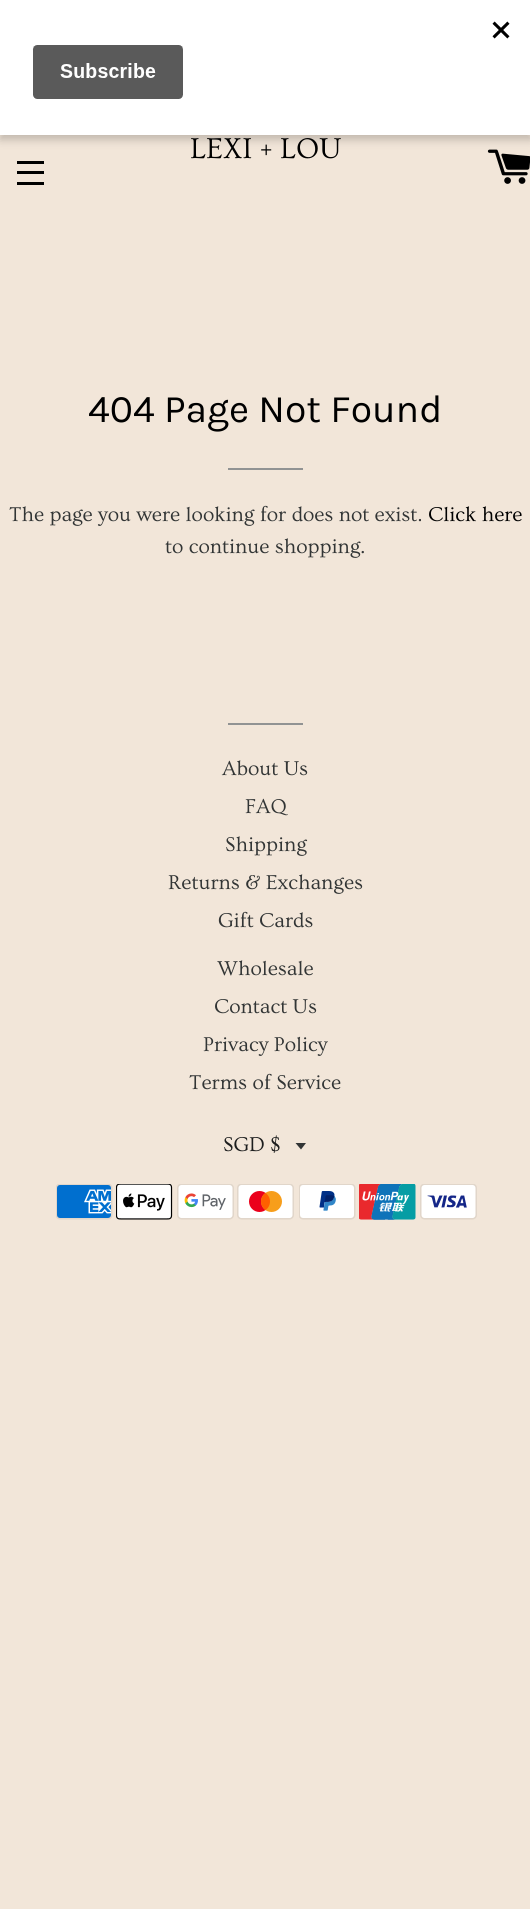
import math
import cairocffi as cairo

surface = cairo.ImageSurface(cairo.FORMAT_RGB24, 530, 1909)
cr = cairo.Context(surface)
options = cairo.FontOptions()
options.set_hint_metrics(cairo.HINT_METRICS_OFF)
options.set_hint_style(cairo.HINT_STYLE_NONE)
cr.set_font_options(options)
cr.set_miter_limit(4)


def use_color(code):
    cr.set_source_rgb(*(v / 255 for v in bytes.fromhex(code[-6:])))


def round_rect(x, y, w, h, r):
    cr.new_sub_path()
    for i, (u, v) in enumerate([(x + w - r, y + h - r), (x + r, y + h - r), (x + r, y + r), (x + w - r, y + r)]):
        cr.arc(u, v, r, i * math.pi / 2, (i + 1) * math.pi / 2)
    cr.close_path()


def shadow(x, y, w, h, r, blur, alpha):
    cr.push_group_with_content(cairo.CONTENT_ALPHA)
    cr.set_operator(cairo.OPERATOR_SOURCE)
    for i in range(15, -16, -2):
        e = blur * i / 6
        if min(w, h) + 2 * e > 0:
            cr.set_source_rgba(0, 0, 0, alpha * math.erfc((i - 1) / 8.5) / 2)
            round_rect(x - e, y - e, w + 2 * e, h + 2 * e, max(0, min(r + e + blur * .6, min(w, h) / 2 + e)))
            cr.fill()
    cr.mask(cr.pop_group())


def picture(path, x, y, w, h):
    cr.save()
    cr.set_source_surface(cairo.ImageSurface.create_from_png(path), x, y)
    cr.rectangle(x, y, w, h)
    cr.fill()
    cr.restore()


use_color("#f2e6d9")
cr.paint()
picture("img2.png", 487, 149, 43, 35)
use_color("#000000")
shadow(0, 5, 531, 135, 0, 4.5, 0.2)
use_color("#ffffff")
cr.rectangle(0, 0, 530, 135)
cr.fill()
picture("img1.png", 32, 21, 478, 78)
use_color("#000000")
cr.rectangle(17, 161, 27, 3)
cr.fill()
cr.rectangle(17, 171, 27, 3)
cr.fill()
cr.rectangle(17, 182, 27, 3)
cr.fill()
cr.select_font_face("Ovo")
cr.set_font_size(30)
cr.move_to(190, 158)
cr.show_text("LEXI + LOU")
cr.select_font_face("Karla")
cr.set_font_size(39)
cr.move_to(88, 422)
cr.show_text("404 Page Not Found")
use_color("#919393")
cr.rectangle(228, 468, 75, 2)
cr.fill()
cr.select_font_face("Ovo")
cr.set_font_size(21)
use_color("#323535")
cr.move_to(9, 521)
cr.show_text("The page you were looking for does not exist.")
use_color("#000000")
cr.move_to(428, 521)
cr.show_text("Click here")
use_color("#323535")
cr.move_to(165, 553)
cr.show_text("to continue shopping.")
use_color("#919393")
cr.rectangle(228, 723, 75, 2)
cr.fill()
use_color("#323535")
cr.move_to(222, 775)
cr.show_text("About Us")
cr.move_to(245, 813)
cr.show_text("FAQ")
cr.move_to(225, 851)
cr.show_text("Shipping")
cr.move_to(168, 889)
cr.show_text("Returns & Exchanges")
cr.move_to(218, 927)
cr.show_text("Gift Cards")
cr.move_to(217, 975)
cr.show_text("Wholesale")
cr.move_to(214, 1013)
cr.show_text("Contact Us")
cr.move_to(203, 1051)
cr.show_text("Privacy Policy")
cr.move_to(189, 1089)
cr.show_text("Terms of Service")
cr.new_path()
cr.move_to(295.5, 1143)
cr.line_to(301, 1149.5)
cr.line_to(306, 1143)
cr.close_path()
cr.fill()
use_color("#1c1d1d")
cr.move_to(223, 1151)
cr.show_text("SGD $")
picture("img3.png", 56, 1184, 57, 36)
picture("img4.png", 116, 1184, 57, 36)
picture("img5.png", 177, 1184, 57, 36)
picture("img6.png", 237, 1184, 57, 36)
picture("img7.png", 299, 1184, 57, 36)
picture("img8.png", 359, 1184, 57, 36)
picture("img9.png", 420, 1184, 57, 36)
surface.write_to_png("result.png")
